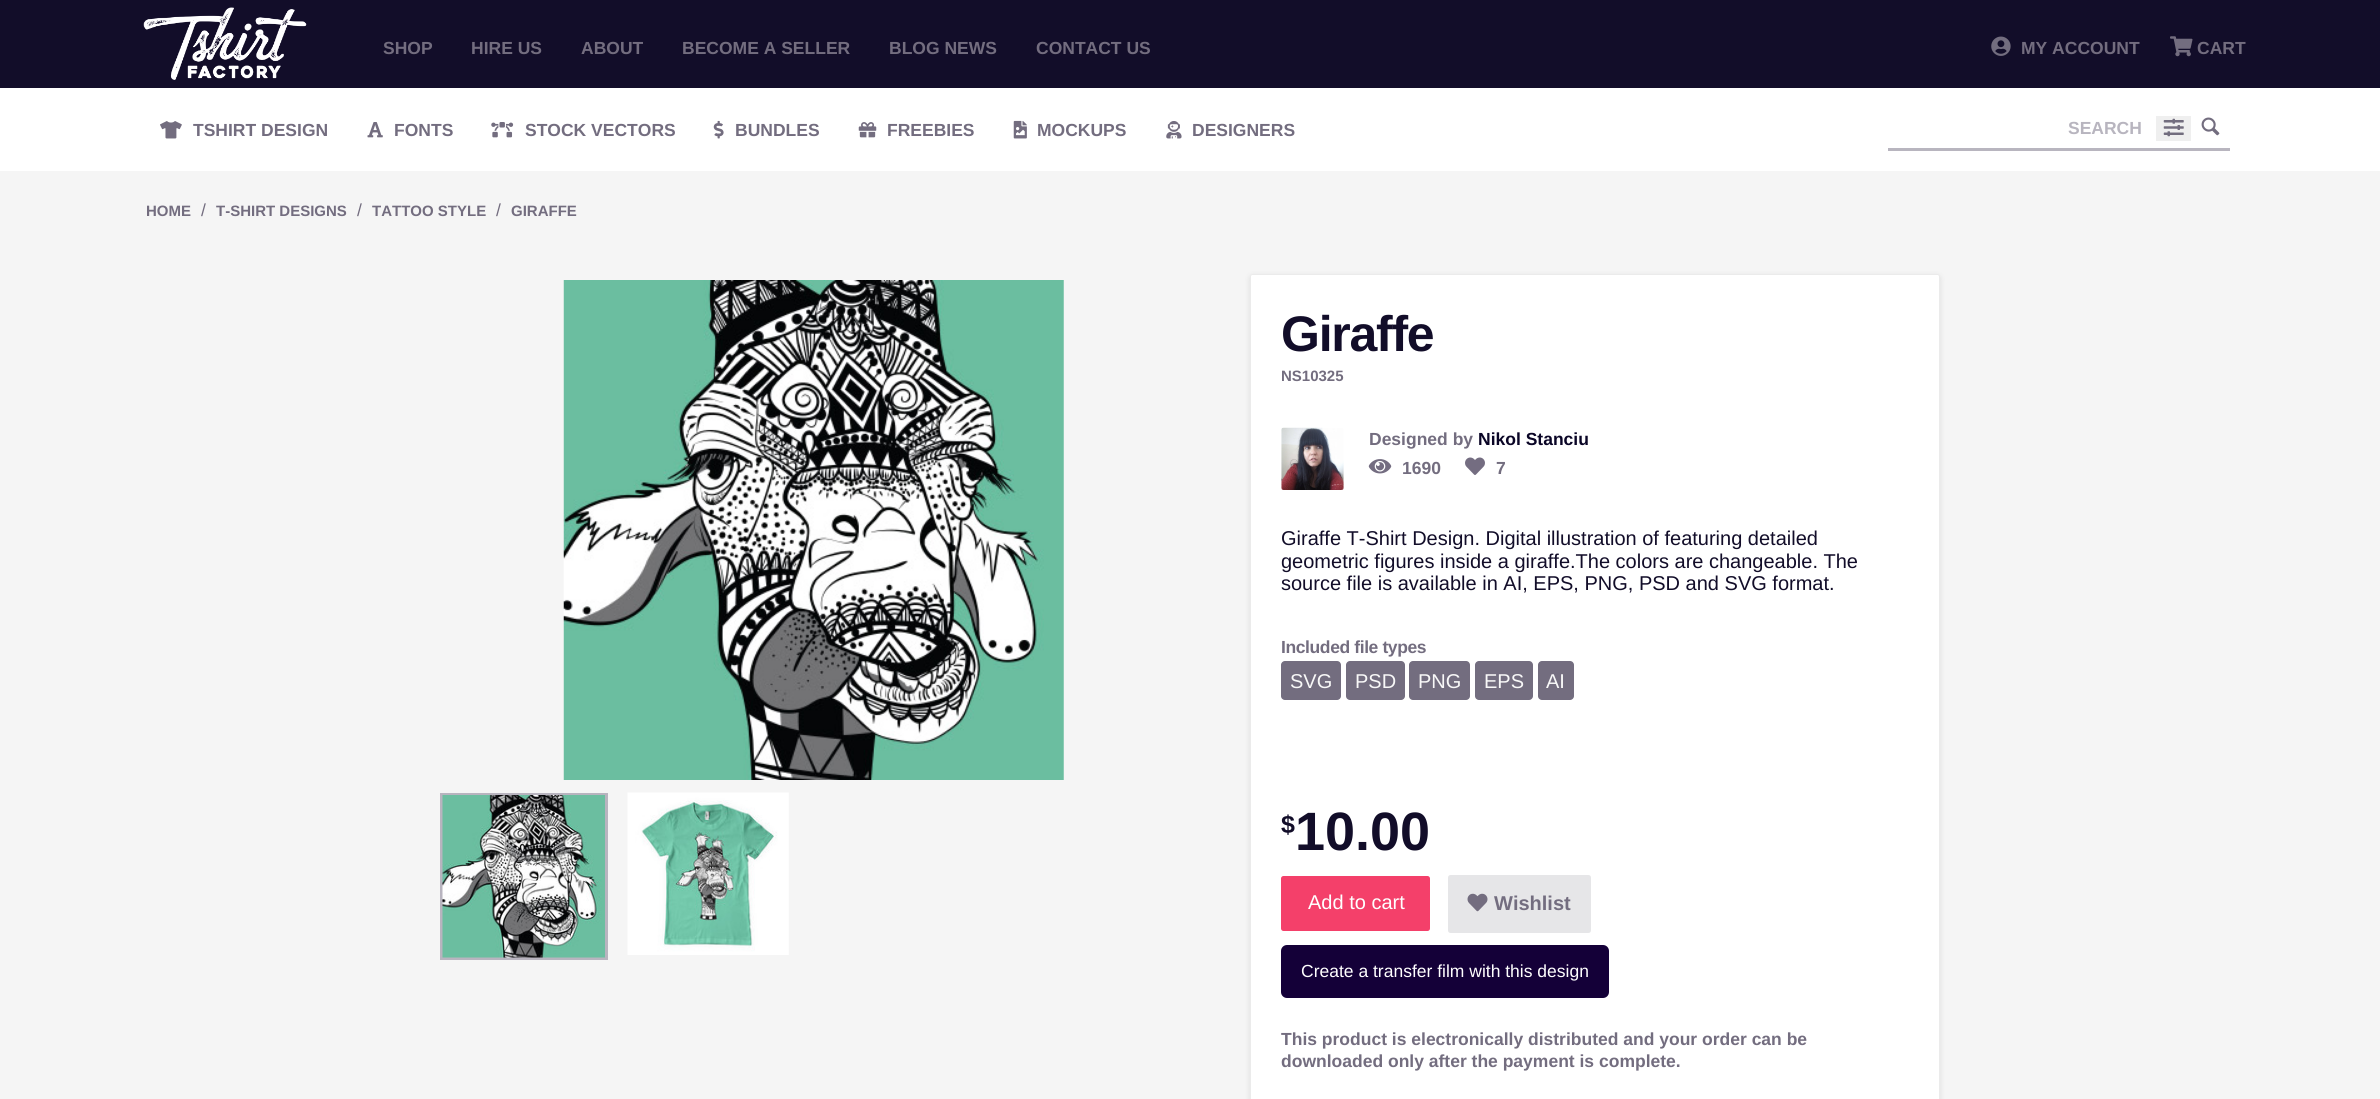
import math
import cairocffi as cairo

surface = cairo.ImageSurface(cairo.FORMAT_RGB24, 2380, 1099)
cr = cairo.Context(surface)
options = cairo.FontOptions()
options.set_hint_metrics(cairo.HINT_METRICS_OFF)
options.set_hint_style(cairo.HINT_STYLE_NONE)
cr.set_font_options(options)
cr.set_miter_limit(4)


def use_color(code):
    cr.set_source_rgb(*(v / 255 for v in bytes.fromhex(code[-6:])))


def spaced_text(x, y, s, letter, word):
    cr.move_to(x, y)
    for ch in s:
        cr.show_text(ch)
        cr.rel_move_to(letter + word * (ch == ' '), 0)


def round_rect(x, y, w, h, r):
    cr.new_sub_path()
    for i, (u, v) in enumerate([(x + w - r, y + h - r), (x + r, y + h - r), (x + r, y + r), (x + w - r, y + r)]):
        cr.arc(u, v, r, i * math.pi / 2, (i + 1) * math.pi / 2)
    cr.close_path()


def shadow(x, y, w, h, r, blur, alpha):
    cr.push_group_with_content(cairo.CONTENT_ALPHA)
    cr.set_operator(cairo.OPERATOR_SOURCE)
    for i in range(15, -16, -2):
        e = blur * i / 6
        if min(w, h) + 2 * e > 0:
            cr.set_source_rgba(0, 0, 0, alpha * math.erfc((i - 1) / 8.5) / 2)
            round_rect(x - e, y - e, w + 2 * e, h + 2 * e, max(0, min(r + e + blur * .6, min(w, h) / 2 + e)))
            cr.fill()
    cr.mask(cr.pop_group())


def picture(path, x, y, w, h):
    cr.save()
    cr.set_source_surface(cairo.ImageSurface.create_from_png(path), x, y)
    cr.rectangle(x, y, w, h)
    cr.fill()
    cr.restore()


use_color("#f5f5f5")
cr.paint()
use_color("#120d29")
cr.rectangle(0, 0, 2380, 88)
cr.fill()
picture("img1.png", 143, 7, 164, 73)
cr.select_font_face("Liberation Sans", cairo.FONT_SLANT_NORMAL, cairo.FONT_WEIGHT_BOLD)
cr.set_font_size(17.5)
use_color("#736d7f")
cr.move_to(383, 54)
cr.show_text("SHOP")
cr.move_to(471, 54)
cr.show_text("HIRE US")
cr.move_to(581, 54)
cr.show_text("ABOUT")
cr.move_to(682, 54)
cr.show_text("BECOME A SELLER")
cr.move_to(889, 54)
cr.show_text("BLOG NEWS")
cr.move_to(1036, 54)
cr.show_text("CONTACT US")
picture("img2.png", 1991, 36, 20, 20)
cr.move_to(2021, 54)
cr.show_text("MY ACCOUNT")
picture("img3.png", 2170, 36, 23, 21)
cr.move_to(2197, 54)
cr.show_text("CART")
use_color("#ffffff")
cr.rectangle(0, 88, 2380, 83)
cr.fill()
picture("img4.png", 160, 121, 22, 18)
use_color("#736d7f")
cr.move_to(193, 136)
cr.show_text("TSHIRT DESIGN")
picture("img5.png", 367, 122, 16, 16)
cr.move_to(394, 136)
cr.show_text("FONTS")
picture("img6.png", 491, 122, 23, 16)
cr.move_to(525, 136)
cr.show_text("STOCK VECTORS")
picture("img7.png", 713, 120, 11, 19)
cr.move_to(735, 136)
cr.show_text("BUNDLES")
picture("img8.png", 858, 122, 19, 16)
cr.move_to(887, 136)
cr.show_text("FREEBIES")
picture("img9.png", 1013, 120, 14, 19)
cr.move_to(1037, 136)
cr.show_text("MOCKUPS")
picture("img10.png", 1166, 121, 16, 18)
cr.move_to(1192, 136)
cr.show_text("DESIGNERS")
use_color("#b8b5bf")
cr.rectangle(1888, 148, 342, 3)
cr.fill()
cr.move_to(2068, 134)
cr.show_text("SEARCH")
use_color("#efefef")
cr.rectangle(2156, 116, 35, 25)
cr.fill()
picture("img11.png", 2163, 118, 21, 19)
picture("img12.png", 2201, 117, 19, 19)
cr.set_font_size(15)
use_color("#736d7f")
cr.move_to(146, 216)
cr.show_text("HOME")
cr.select_font_face("Liberation Sans")
cr.set_font_size(17.5)
cr.move_to(201, 216)
cr.show_text("/")
cr.select_font_face("Liberation Sans", cairo.FONT_SLANT_NORMAL, cairo.FONT_WEIGHT_BOLD)
cr.set_font_size(15)
cr.move_to(216, 216)
cr.show_text("T-SHIRT DESIGNS")
cr.select_font_face("Liberation Sans")
cr.set_font_size(17.5)
cr.move_to(357, 216)
cr.show_text("/")
cr.select_font_face("Liberation Sans", cairo.FONT_SLANT_NORMAL, cairo.FONT_WEIGHT_BOLD)
cr.set_font_size(15)
cr.move_to(372, 216)
cr.show_text("TATTOO STYLE")
cr.select_font_face("Liberation Sans")
cr.set_font_size(17.5)
cr.move_to(496, 216)
cr.show_text("/")
cr.select_font_face("Liberation Sans", cairo.FONT_SLANT_NORMAL, cairo.FONT_WEIGHT_BOLD)
cr.set_font_size(15)
cr.move_to(511, 216)
cr.show_text("GIRAFFE")
picture("img13.png", 563, 280, 501, 500)
cr.rectangle(441.5, 794.5, 165, 164)
use_color("#b8b4bf")
cr.set_line_width(3)
cr.stroke()
picture("img14.png", 442, 795, 163, 163)
picture("img15.png", 627, 792, 162, 163)
use_color("#000000")
shadow(1250, 276, 690, 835, 2.5, 3, 0.1)
use_color("#ffffff")
round_rect(1250.5, 274.5, 689, 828, 2)
cr.fill_preserve()
use_color("#ebebeb")
cr.set_line_width(1)
cr.stroke()
cr.set_font_size(50)
use_color("#120d29")
spaced_text(1281, 351, "Giraffe", -1.25, 0)
cr.set_font_size(15)
use_color("#736d7f")
cr.move_to(1281, 381)
cr.show_text("NS10325")
picture("img16.png", 1281, 427, 63, 63)
cr.set_font_size(17.5)
cr.move_to(1369, 445)
cr.show_text("Designed by")
use_color("#0a0526")
cr.move_to(1478, 445)
cr.show_text("Nikol Stanciu")
picture("img17.png", 1368, 459, 24, 15)
use_color("#736d7f")
cr.move_to(1402, 474)
cr.show_text("1690")
picture("img18.png", 1465, 457, 20, 18)
cr.move_to(1496, 474)
cr.show_text("7")
cr.select_font_face("Liberation Sans")
cr.set_font_size(20)
use_color("#120d29")
cr.move_to(1281, 545)
cr.show_text("Giraffe T-Shirt Design. Digital illustration of featuring detailed")
cr.move_to(1281, 568)
cr.show_text("geometric figures inside a giraffe.The colors are changeable. The")
cr.move_to(1281, 590)
cr.show_text("source file is available in AI, EPS, PNG, PSD and SVG format.")
cr.select_font_face("Liberation Sans", cairo.FONT_SLANT_NORMAL, cairo.FONT_WEIGHT_BOLD)
cr.set_font_size(17.5)
use_color("#736d7f")
spaced_text(1281, 653, "Included file types", -0.4, 0)
round_rect(1281, 661, 60, 39, 4)
cr.fill()
cr.select_font_face("Liberation Sans")
cr.set_font_size(20)
use_color("#f8f8f8")
cr.move_to(1290, 688)
cr.show_text("SVG")
use_color("#736d7f")
round_rect(1346, 661, 59, 39, 4)
cr.fill()
use_color("#f8f8f8")
cr.move_to(1355, 688)
cr.show_text("PSD")
use_color("#736d7f")
round_rect(1409, 661, 61, 39, 4)
cr.fill()
use_color("#f8f8f8")
cr.move_to(1418, 688)
cr.show_text("PNG")
use_color("#736d7f")
round_rect(1475, 661, 58, 39, 4)
cr.fill()
use_color("#f8f8f8")
cr.move_to(1484, 688)
cr.show_text("EPS")
use_color("#736d7f")
round_rect(1538, 661, 36, 39, 4)
cr.fill()
use_color("#f8f8f8")
cr.move_to(1546, 688)
cr.show_text("AI")
cr.select_font_face("Liberation Sans", cairo.FONT_SLANT_NORMAL, cairo.FONT_WEIGHT_BOLD)
cr.set_font_size(25)
use_color("#120d29")
cr.move_to(1281, 833)
cr.show_text("$")
cr.set_font_size(54)
cr.move_to(1295, 850)
cr.show_text("10.00")
use_color("#f4406a")
round_rect(1281, 876, 149, 55, 2.5)
cr.fill()
cr.select_font_face("Liberation Sans")
cr.set_font_size(20)
use_color("#ffffff")
cr.move_to(1308, 909)
cr.show_text("Add to cart")
use_color("#e6e6e8")
round_rect(1448, 875, 143, 58, 2.5)
cr.fill()
picture("img19.png", 1467, 893, 21, 19)
cr.select_font_face("Liberation Sans", cairo.FONT_SLANT_NORMAL, cairo.FONT_WEIGHT_BOLD)
use_color("#736d7f")
cr.move_to(1494, 910)
cr.show_text("Wishlist")
use_color("#140038")
round_rect(1281, 945, 328, 53, 6)
cr.fill()
cr.select_font_face("Liberation Sans")
cr.set_font_size(17.5)
use_color("#ffffff")
cr.move_to(1301, 977)
cr.show_text("Create a transfer film with this design")
cr.select_font_face("Liberation Sans", cairo.FONT_SLANT_NORMAL, cairo.FONT_WEIGHT_BOLD)
use_color("#736d7f")
cr.move_to(1281, 1045)
cr.show_text("This product is electronically distributed and your order can be")
cr.move_to(1281, 1067)
cr.show_text("downloaded only after the payment is complete.")
surface.write_to_png("result.png")
